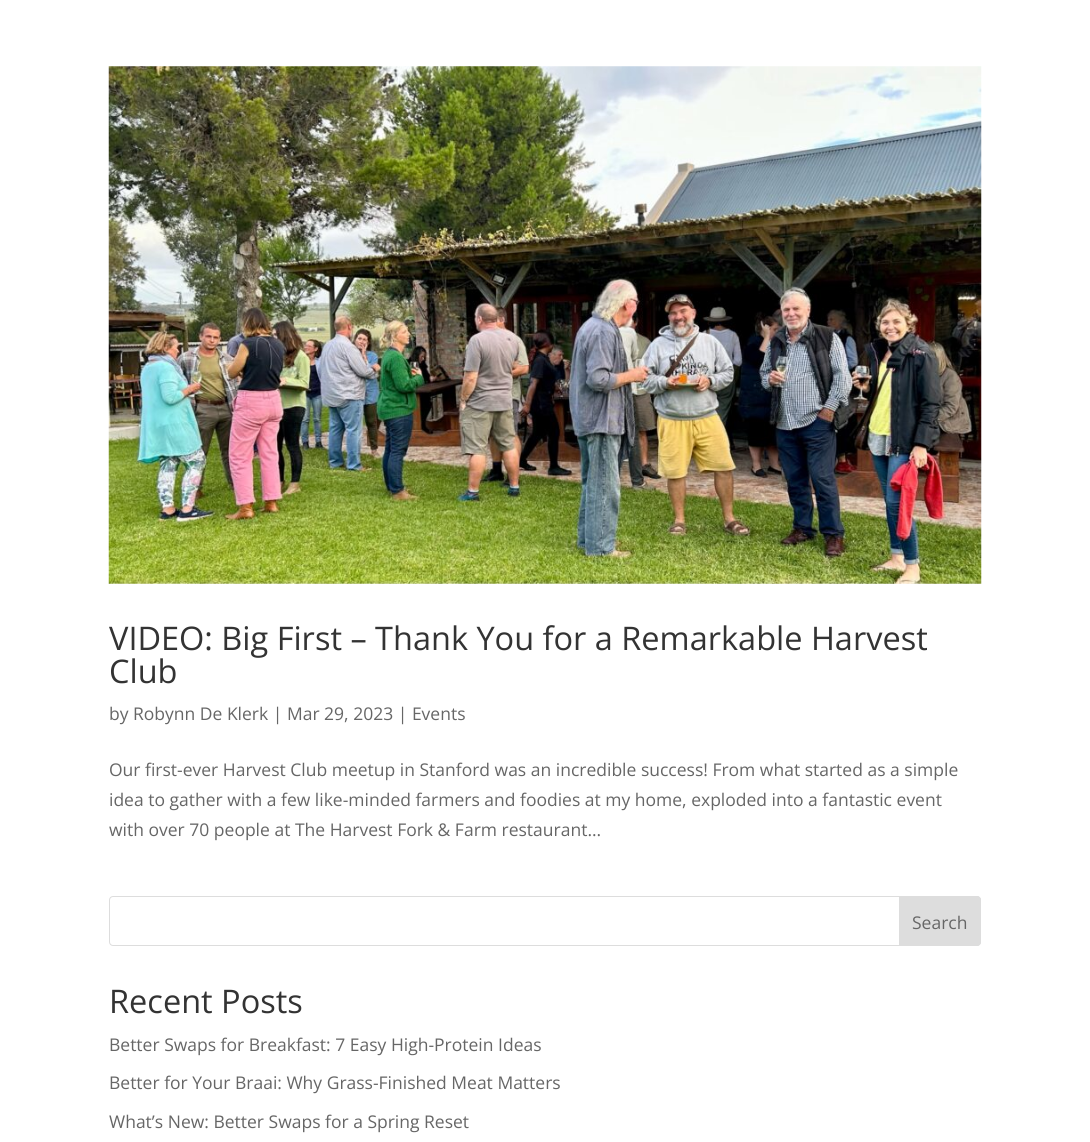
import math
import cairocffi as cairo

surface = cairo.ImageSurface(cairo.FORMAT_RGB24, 1090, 1142)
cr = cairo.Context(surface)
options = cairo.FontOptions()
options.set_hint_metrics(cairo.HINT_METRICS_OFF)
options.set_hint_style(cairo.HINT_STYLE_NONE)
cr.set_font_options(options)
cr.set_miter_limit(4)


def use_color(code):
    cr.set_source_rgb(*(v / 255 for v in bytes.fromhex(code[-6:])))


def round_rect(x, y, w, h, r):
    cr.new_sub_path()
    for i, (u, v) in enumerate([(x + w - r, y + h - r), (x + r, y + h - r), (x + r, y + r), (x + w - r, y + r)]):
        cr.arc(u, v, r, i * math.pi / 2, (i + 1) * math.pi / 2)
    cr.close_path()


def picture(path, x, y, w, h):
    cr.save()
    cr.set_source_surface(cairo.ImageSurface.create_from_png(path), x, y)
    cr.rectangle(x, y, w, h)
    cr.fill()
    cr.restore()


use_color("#ffffff")
cr.paint()
picture("img1.png", 108, 66, 874, 518)
cr.select_font_face("Open Sans")
cr.set_font_size(32.5)
use_color("#333333")
cr.move_to(109, 650)
cr.show_text("VIDEO: Big First – Thank You for a Remarkable Harvest")
cr.move_to(109, 683)
cr.show_text("Club")
cr.set_font_size(17.5)
use_color("#666666")
cr.move_to(109, 720)
cr.show_text("by Robynn De Klerk | Mar 29, 2023 | Events")
cr.move_to(109, 776)
cr.show_text("Our first-ever Harvest Club meetup in Stanford was an incredible success! From what started as a simple")
cr.move_to(109, 806)
cr.show_text("idea to gather with a few like-minded farmers and foodies at my home, exploded into a fantastic event")
cr.move_to(109, 836)
cr.show_text("with over 70 people at The Harvest Fork & Farm restaurant...")
round_rect(109.5, 896.5, 871, 49, 3.5)
use_color("#dddddd")
cr.set_line_width(1)
cr.stroke()
cr.new_path()
cr.move_to(899.5, 896.5)
cr.line_to(977, 896.5)
cr.curve_to(979, 896.5, 980.5, 898, 980.5, 900)
cr.line_to(980.5, 942)
cr.curve_to(980.5, 944, 979, 945.5, 977, 945.5)
cr.line_to(899.5, 945.5)
cr.close_path()
cr.fill_preserve()
cr.stroke()
use_color("#666666")
cr.move_to(912, 929)
cr.show_text("Search")
cr.set_font_size(32.5)
use_color("#333333")
cr.move_to(109, 1013)
cr.show_text("Recent Posts")
cr.set_font_size(17.5)
use_color("#666666")
cr.move_to(109, 1051)
cr.show_text("Better Swaps for Breakfast: 7 Easy High-Protein Ideas")
cr.move_to(109, 1089)
cr.show_text("Better for Your Braai: Why Grass-Finished Meat Matters")
cr.move_to(109, 1128)
cr.show_text("What’s New: Better Swaps for a Spring Reset")
surface.write_to_png("result.png")
